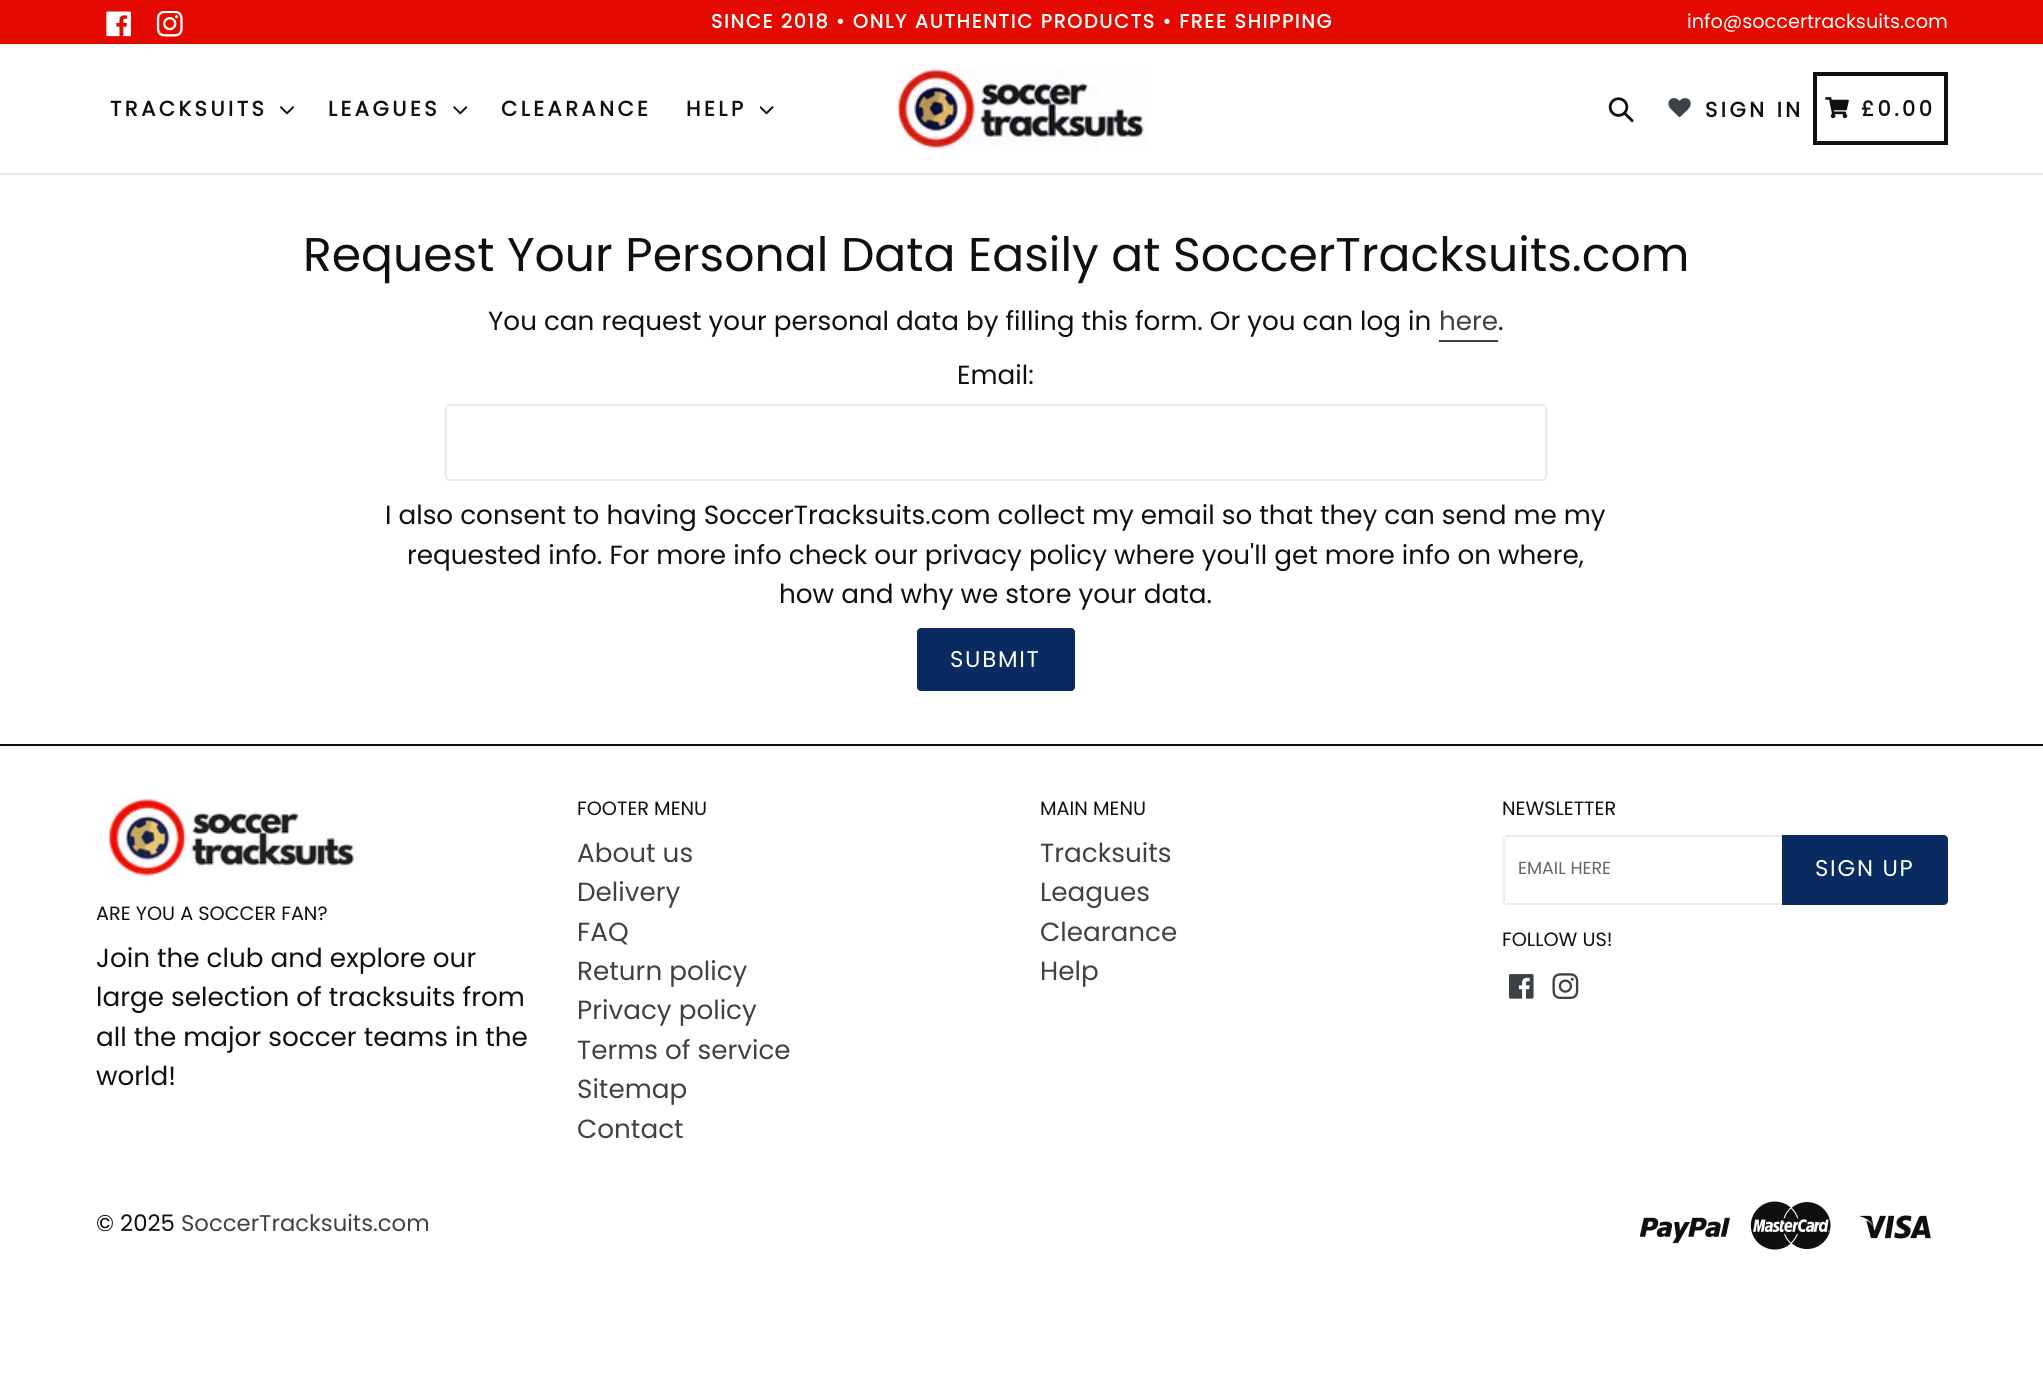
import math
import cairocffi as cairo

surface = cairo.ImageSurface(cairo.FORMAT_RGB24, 2043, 1393)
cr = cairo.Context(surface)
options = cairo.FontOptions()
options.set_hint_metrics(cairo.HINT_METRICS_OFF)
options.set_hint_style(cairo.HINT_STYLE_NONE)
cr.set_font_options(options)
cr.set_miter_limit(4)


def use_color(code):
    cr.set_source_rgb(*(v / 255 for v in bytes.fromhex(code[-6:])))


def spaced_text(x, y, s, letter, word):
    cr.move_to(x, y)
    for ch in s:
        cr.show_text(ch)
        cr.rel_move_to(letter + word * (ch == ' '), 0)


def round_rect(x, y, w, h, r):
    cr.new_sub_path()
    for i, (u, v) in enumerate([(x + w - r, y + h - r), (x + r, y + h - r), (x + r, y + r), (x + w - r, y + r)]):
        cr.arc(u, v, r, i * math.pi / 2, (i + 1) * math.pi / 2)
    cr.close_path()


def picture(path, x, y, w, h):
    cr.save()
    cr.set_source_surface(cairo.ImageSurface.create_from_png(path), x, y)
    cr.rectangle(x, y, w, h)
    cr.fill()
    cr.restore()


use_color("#ffffff")
cr.paint()
use_color("#e50a00")
cr.rectangle(0, 0, 2043, 44)
cr.fill()
picture("img1.png", 106, 11, 25, 26)
picture("img2.png", 156, 11, 27, 26)
cr.select_font_face("Poppins", cairo.FONT_SLANT_NORMAL, cairo.FONT_WEIGHT_BOLD)
cr.set_font_size(19.25)
use_color("#ffffff")
spaced_text(711, 28, "SINCE 2018 • ONLY AUTHENTIC PRODUCTS • FREE SHIPPING", 1.75, 0)
cr.select_font_face("Poppins")
cr.move_to(1687, 28)
cr.show_text("info@soccertracksuits.com")
use_color("#ebebeb")
cr.rectangle(0, 173, 2043, 2)
cr.fill()
cr.select_font_face("Poppins", cairo.FONT_SLANT_NORMAL, cairo.FONT_WEIGHT_BOLD)
cr.set_font_size(21)
use_color("#0f0f0f")
spaced_text(110, 116, "TRACKSUITS", 3.5, 0)
picture("img3.png", 280, 106, 14, 9)
spaced_text(328, 116, "LEAGUES", 3.5, 0)
picture("img4.png", 453, 106, 14, 9)
spaced_text(501, 116, "CLEARANCE", 3.5, 0)
spaced_text(686, 116, "HELP", 3.5, 0)
picture("img5.png", 760, 106, 14, 9)
picture("img6.png", 896, 66, 252, 85)
picture("img7.png", 1608, 97, 26, 26)
picture("img8.png", 1668, 98, 23, 20)
spaced_text(1705, 117, "SIGN IN", 3.5, 0)
cr.rectangle(1815, 74, 131, 69)
cr.set_line_width(4)
cr.stroke()
picture("img9.png", 1825, 97, 24, 22)
spaced_text(1861, 116, "£0.00", 3.5, 0)
cr.select_font_face("Poppins")
cr.set_font_size(47.25)
cr.move_to(303, 271)
cr.show_text("Request Your Personal Data Easily at SoccerTracksuits.com")
cr.set_font_size(26.25)
cr.move_to(488, 330)
cr.show_text("You can request your personal data by filling this form. Or you can log in")
use_color("#3d4246")
cr.move_to(1439, 330)
cr.show_text("here")
cr.rectangle(1439, 340, 59, 2)
cr.fill()
use_color("#0f0f0f")
cr.move_to(1498, 330)
cr.show_text(".")
cr.move_to(957, 384)
cr.show_text("Email:")
round_rect(446, 405, 1100, 75, 3)
use_color("#ebebeb")
cr.set_line_width(2)
cr.stroke()
use_color("#0f0f0f")
cr.move_to(385, 524)
cr.show_text("I also consent to having SoccerTracksuits.com collect my email so that they can send me my")
cr.move_to(407, 564)
cr.show_text("requested info. For more info check our privacy policy where you'll get more info on where,")
cr.move_to(779, 603)
cr.show_text("how and why we store your data.")
use_color("#092b61")
round_rect(917, 628, 158, 63, 4)
cr.fill()
cr.set_font_size(22.75)
use_color("#ffffff")
spaced_text(950, 667, "SUBMIT", 1.75, 0)
use_color("#0f0f0f")
cr.rectangle(0, 744, 2043, 2)
cr.fill()
cr.set_font_size(19.25)
cr.move_to(577, 815)
cr.show_text("FOOTER MENU")
cr.set_font_size(26.25)
use_color("#3d4246")
cr.move_to(577, 862)
cr.show_text("About us")
cr.move_to(577, 901)
cr.show_text("Delivery")
cr.move_to(577, 941)
cr.show_text("FAQ")
cr.move_to(577, 980)
cr.show_text("Return policy")
cr.move_to(577, 1019)
cr.show_text("Privacy policy")
cr.move_to(577, 1059)
cr.show_text("Terms of service")
cr.move_to(577, 1098)
cr.show_text("Sitemap")
cr.move_to(577, 1138)
cr.show_text("Contact")
cr.set_font_size(19.25)
use_color("#0f0f0f")
cr.move_to(1040, 815)
cr.show_text("MAIN MENU")
cr.set_font_size(26.25)
use_color("#3d4246")
cr.move_to(1040, 862)
cr.show_text("Tracksuits")
cr.move_to(1040, 901)
cr.show_text("Leagues")
cr.move_to(1040, 941)
cr.show_text("Clearance")
cr.move_to(1040, 980)
cr.show_text("Help")
cr.set_font_size(19.25)
use_color("#0f0f0f")
cr.move_to(1502, 815)
cr.show_text("NEWSLETTER")
use_color("#ebebeb")
cr.rectangle(1505, 835, 277, 2)
cr.fill()
cr.rectangle(1505, 903, 277, 2)
cr.fill()
cr.rectangle(1503, 837, 2, 66)
cr.fill()
cr.set_font_size(17.5)
use_color("#666666")
cr.move_to(1518, 874)
cr.show_text("EMAIL HERE")
use_color("#092b61")
cr.new_path()
cr.move_to(1782, 835)
cr.line_to(1944, 835)
cr.curve_to(1946, 835, 1948, 837, 1948, 839)
cr.line_to(1948, 901)
cr.curve_to(1948, 903, 1946, 905, 1944, 905)
cr.line_to(1782, 905)
cr.close_path()
cr.fill()
cr.set_font_size(22.75)
use_color("#ffffff")
spaced_text(1815, 876, "SIGN UP", 1.75, 0)
cr.set_font_size(19.25)
use_color("#0f0f0f")
cr.move_to(1502, 946)
cr.show_text("FOLLOW US!")
picture("img10.png", 1509, 974, 25, 25)
picture("img11.png", 1552, 973, 27, 26)
picture("img12.png", 107, 798, 251, 79)
cr.move_to(96, 920)
cr.show_text("ARE YOU A SOCCER FAN?")
cr.set_font_size(26.25)
cr.move_to(96, 967)
cr.show_text("Join the club and explore our")
cr.move_to(96, 1006)
cr.show_text("large selection of tracksuits from")
cr.move_to(96, 1046)
cr.show_text("all the major soccer teams in the")
cr.move_to(96, 1085)
cr.show_text("world!")
cr.set_font_size(22.75)
cr.move_to(96, 1231)
cr.show_text("© 2025")
use_color("#3d4246")
cr.move_to(181, 1231)
cr.show_text("SoccerTracksuits.com")
picture("img13.png", 1640, 1217, 90, 27)
picture("img14.png", 1750, 1201, 81, 49)
picture("img15.png", 1859, 1215, 72, 24)
surface.write_to_png("result.png")
